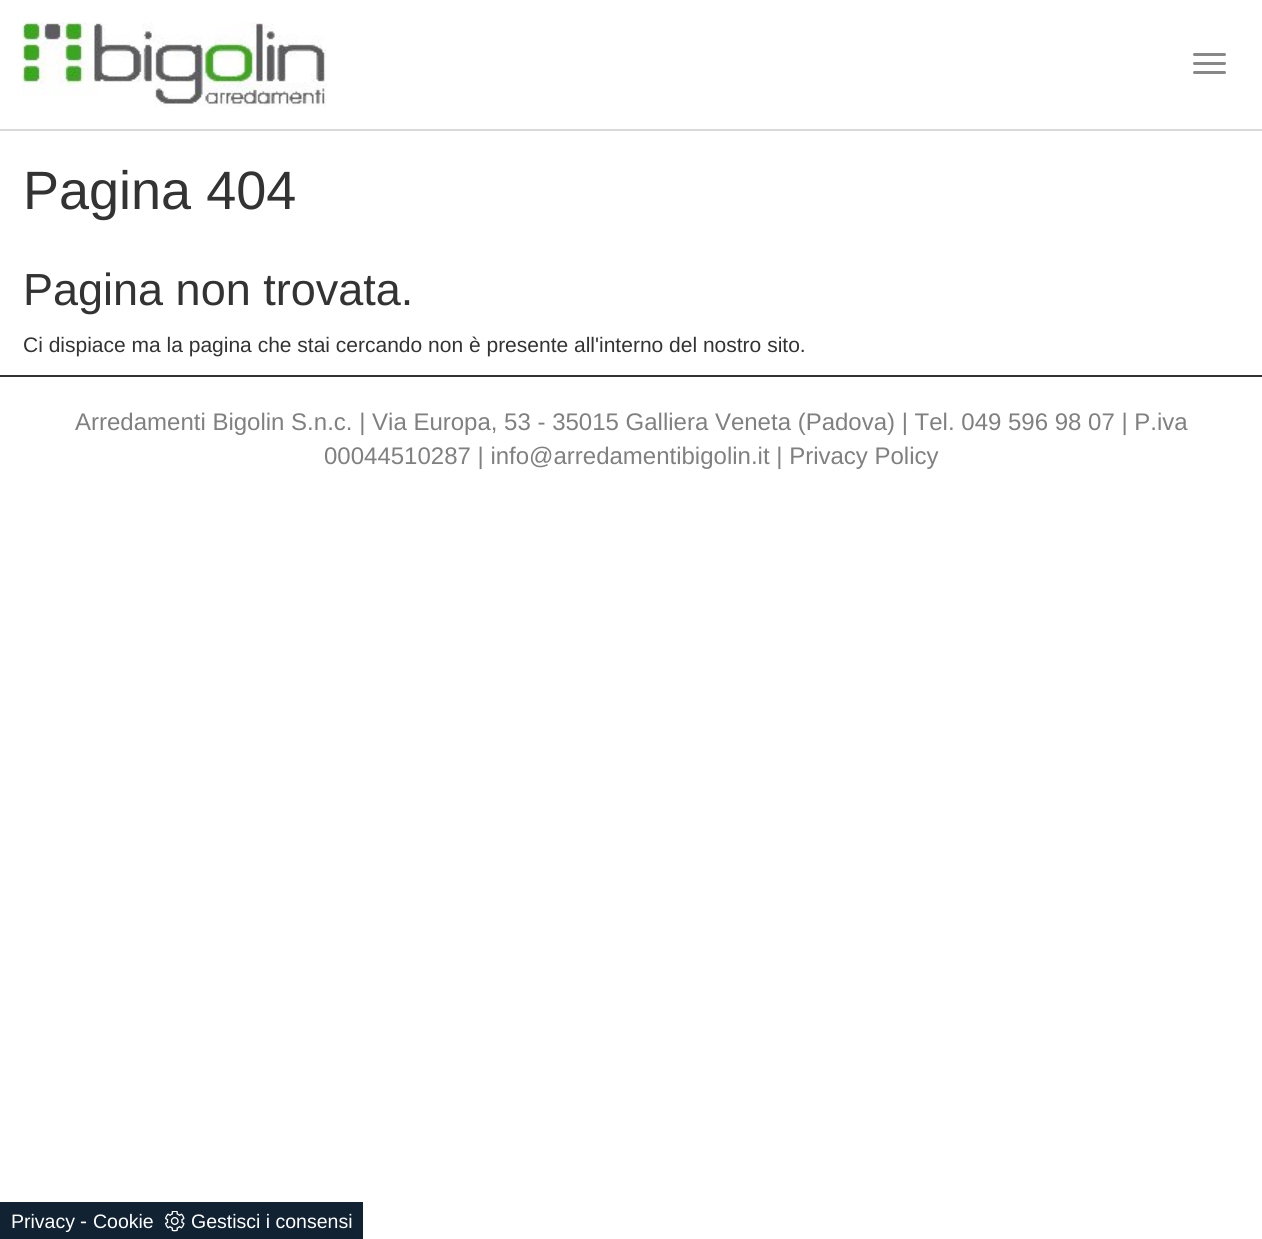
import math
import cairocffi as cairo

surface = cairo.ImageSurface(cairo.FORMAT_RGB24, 1262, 1239)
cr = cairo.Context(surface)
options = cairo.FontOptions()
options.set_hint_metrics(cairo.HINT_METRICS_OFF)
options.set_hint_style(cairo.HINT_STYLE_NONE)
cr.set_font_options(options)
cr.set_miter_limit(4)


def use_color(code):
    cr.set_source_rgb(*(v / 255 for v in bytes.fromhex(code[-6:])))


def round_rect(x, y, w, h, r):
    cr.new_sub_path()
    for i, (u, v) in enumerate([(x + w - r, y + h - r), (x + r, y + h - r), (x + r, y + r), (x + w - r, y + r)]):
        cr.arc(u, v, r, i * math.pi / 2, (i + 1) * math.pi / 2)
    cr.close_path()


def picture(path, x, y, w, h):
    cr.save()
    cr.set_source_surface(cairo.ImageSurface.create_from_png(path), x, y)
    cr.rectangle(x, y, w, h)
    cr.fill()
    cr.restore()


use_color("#ffffff")
cr.paint()
use_color("#d9d9d9")
cr.rectangle(0, 129, 1262, 2)
cr.fill()
picture("img1.png", 22, 22, 305, 85)
use_color("#888888")
round_rect(1193, 53, 33, 3, 1.5)
cr.fill()
round_rect(1193, 62, 33, 3, 1.5)
cr.fill()
round_rect(1193, 71, 33, 3, 1.5)
cr.fill()
cr.select_font_face("Liberation Sans")
cr.set_font_size(54)
use_color("#333333")
cr.move_to(23, 209)
cr.show_text("Pagina 404")
cr.set_font_size(45)
cr.move_to(23, 305)
cr.show_text("Pagina non trovata.")
cr.set_font_size(21)
cr.move_to(23, 352)
cr.show_text("Ci dispiace ma la pagina che stai cercando non è presente all'interno del nostro sito.")
cr.rectangle(0, 375, 1262, 2)
cr.fill()
cr.set_font_size(24)
use_color("#808080")
cr.move_to(75, 430)
cr.show_text("Arredamenti Bigolin S.n.c. | Via Europa, 53 - 35015 Galliera Veneta (Padova) | Tel. 049 596 98 07 | P.iva")
cr.move_to(324, 464)
cr.show_text("00044510287 | info@arredamentibigolin.it | Privacy Policy")
use_color("#112233")
cr.rectangle(0, 1202, 363, 37)
cr.fill()
cr.set_font_size(19.5)
use_color("#ffffff")
cr.move_to(11, 1228)
cr.show_text("Privacy")
cr.set_font_size(21)
cr.move_to(80, 1228)
cr.show_text("-")
cr.set_font_size(19.5)
cr.move_to(93, 1228)
cr.show_text("Cookie")
picture("img2.png", 165, 1211, 20, 21)
cr.move_to(191, 1228)
cr.show_text("Gestisci i consensi")
surface.write_to_png("result.png")
